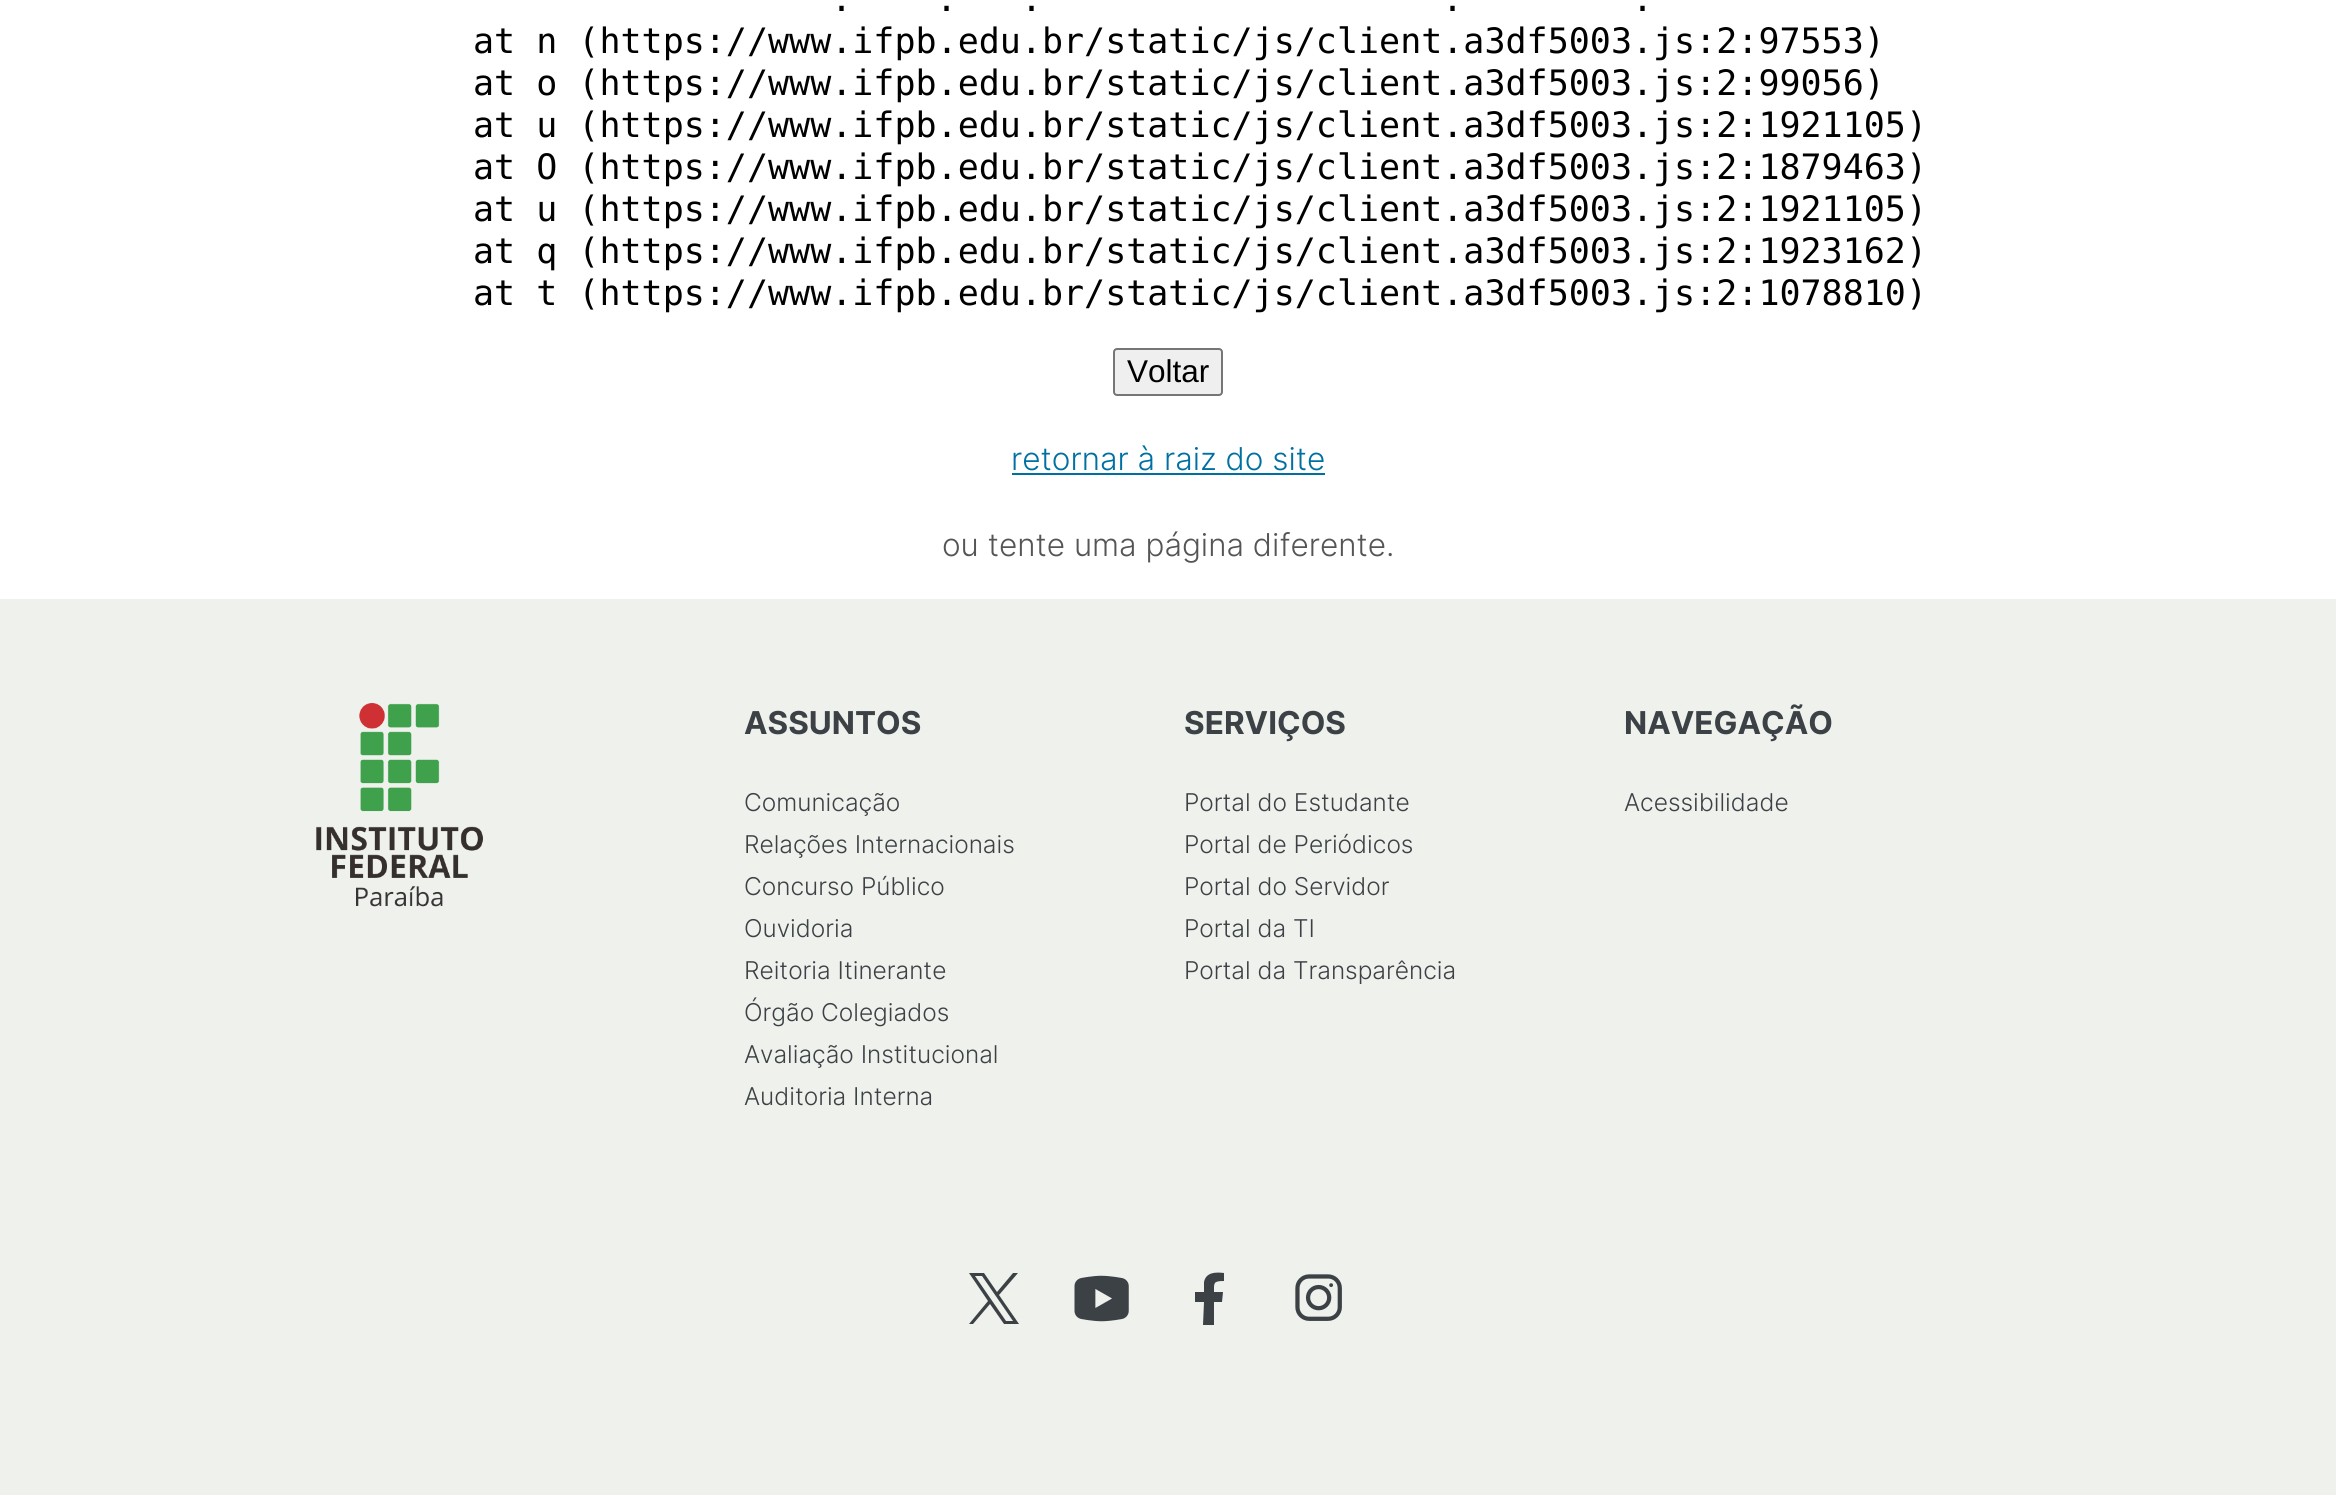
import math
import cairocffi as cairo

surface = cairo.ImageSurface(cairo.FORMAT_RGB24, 2336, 1495)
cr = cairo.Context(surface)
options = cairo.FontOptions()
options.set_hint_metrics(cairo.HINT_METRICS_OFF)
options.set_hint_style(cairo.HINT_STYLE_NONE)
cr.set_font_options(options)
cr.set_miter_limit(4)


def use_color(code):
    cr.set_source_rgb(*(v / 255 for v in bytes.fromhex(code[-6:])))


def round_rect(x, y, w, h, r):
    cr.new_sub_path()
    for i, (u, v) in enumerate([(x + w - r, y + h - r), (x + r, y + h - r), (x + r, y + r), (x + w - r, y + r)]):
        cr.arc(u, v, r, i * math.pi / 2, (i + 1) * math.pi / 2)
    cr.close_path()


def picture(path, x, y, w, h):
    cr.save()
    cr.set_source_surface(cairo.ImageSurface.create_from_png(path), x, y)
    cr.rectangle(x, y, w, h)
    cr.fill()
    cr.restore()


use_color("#ffffff")
cr.paint()
cr.select_font_face("DejaVu Sans Mono")
cr.set_font_size(35)
use_color("#000000")
cr.move_to(831, 11)
cr.show_text(".")
cr.move_to(936, 11)
cr.show_text(".")
cr.move_to(1021, 11)
cr.show_text(".")
cr.move_to(1442, 11)
cr.show_text(".")
cr.move_to(1632, 11)
cr.show_text(".")
cr.move_to(473, 53)
cr.show_text("at n (https://www.ifpb.edu.br/static/js/client.a3df5003.js:2:97553)")
cr.move_to(473, 95)
cr.show_text("at o (https://www.ifpb.edu.br/static/js/client.a3df5003.js:2:99056)")
cr.move_to(473, 137)
cr.show_text("at u (https://www.ifpb.edu.br/static/js/client.a3df5003.js:2:1921105)")
cr.move_to(473, 179)
cr.show_text("at O (https://www.ifpb.edu.br/static/js/client.a3df5003.js:2:1879463)")
cr.move_to(473, 221)
cr.show_text("at u (https://www.ifpb.edu.br/static/js/client.a3df5003.js:2:1921105)")
cr.move_to(473, 263)
cr.show_text("at q (https://www.ifpb.edu.br/static/js/client.a3df5003.js:2:1923162)")
cr.move_to(473, 305)
cr.show_text("at t (https://www.ifpb.edu.br/static/js/client.a3df5003.js:2:1078810)")
use_color("#efefef")
round_rect(1114, 349, 108, 46, 3)
cr.fill_preserve()
use_color("#767676")
cr.stroke()
cr.select_font_face("Liberation Sans")
cr.set_font_size(31.5)
use_color("#000000")
cr.move_to(1127, 382)
cr.show_text("Voltar")
cr.select_font_face("Inter Light")
use_color("#0070a2")
cr.move_to(1011, 470)
cr.show_text("retornar à raiz do site")
cr.rectangle(1012, 473, 313, 2)
cr.fill()
use_color("#555555")
cr.move_to(942, 556)
cr.show_text("ou tente uma página diferente.")
use_color("#eef1ec")
cr.rectangle(0, 599, 2336, 896)
cr.fill()
picture("img1.png", 316, 703, 167, 204)
cr.select_font_face("Inter", cairo.FONT_SLANT_NORMAL, cairo.FONT_WEIGHT_BOLD)
use_color("#3c4146")
cr.move_to(744, 734)
cr.show_text("ASSUNTOS")
cr.select_font_face("Inter Light")
cr.set_font_size(24.5)
cr.move_to(744, 811)
cr.show_text("Comunicação")
cr.move_to(744, 853)
cr.show_text("Relações Internacionais")
cr.move_to(744, 895)
cr.show_text("Concurso Público")
cr.move_to(744, 937)
cr.show_text("Ouvidoria")
cr.move_to(744, 979)
cr.show_text("Reitoria Itinerante")
cr.move_to(744, 1021)
cr.show_text("Órgão Colegiados")
cr.move_to(744, 1063)
cr.show_text("Avaliação Institucional")
cr.move_to(744, 1105)
cr.show_text("Auditoria Interna")
cr.select_font_face("Inter", cairo.FONT_SLANT_NORMAL, cairo.FONT_WEIGHT_BOLD)
cr.set_font_size(31.5)
cr.move_to(1184, 734)
cr.show_text("SERVIÇOS")
cr.select_font_face("Inter Light")
cr.set_font_size(24.5)
cr.move_to(1184, 811)
cr.show_text("Portal do Estudante")
cr.move_to(1184, 853)
cr.show_text("Portal de Periódicos")
cr.move_to(1184, 895)
cr.show_text("Portal do Servidor")
cr.move_to(1184, 937)
cr.show_text("Portal da TI")
cr.move_to(1184, 979)
cr.show_text("Portal da Transparência")
cr.select_font_face("Inter", cairo.FONT_SLANT_NORMAL, cairo.FONT_WEIGHT_BOLD)
cr.set_font_size(31.5)
cr.move_to(1624, 734)
cr.show_text("NAVEGAÇÃO")
cr.select_font_face("Inter Light")
cr.set_font_size(24.5)
cr.move_to(1624, 811)
cr.show_text("Acessibilidade")
cr.new_path()
cr.move_to(999, 1295)
cr.line_to(1018, 1273)
cr.line_to(1013, 1273)
cr.line_to(997, 1292)
cr.line_to(984, 1273)
cr.line_to(969, 1273)
cr.line_to(988, 1301)
cr.line_to(969, 1324)
cr.line_to(973, 1324)
cr.line_to(990, 1304)
cr.line_to(1004, 1324)
cr.line_to(1019, 1324)
cr.move_to(975, 1276)
cr.line_to(982, 1276)
cr.line_to(1013, 1321)
cr.line_to(1006, 1321)
cr.fill()
picture("img2.png", 1074, 1275, 55, 47)
cr.new_path()
cr.move_to(1214, 1325)
cr.line_to(1203, 1325)
cr.line_to(1204, 1302)
cr.line_to(1195, 1302)
cr.line_to(1195, 1292)
cr.line_to(1204, 1292)
cr.line_to(1204, 1282)
cr.curve_to(1206, 1272, 1216, 1272, 1224, 1273)
cr.line_to(1224, 1281)
cr.curve_to(1213, 1281, 1214, 1283, 1214, 1292)
cr.line_to(1223, 1292)
cr.line_to(1222, 1302)
cr.line_to(1214, 1302)
cr.close_path()
cr.fill()
picture("img3.png", 1295, 1274, 47, 47)
surface.write_to_png("result.png")
